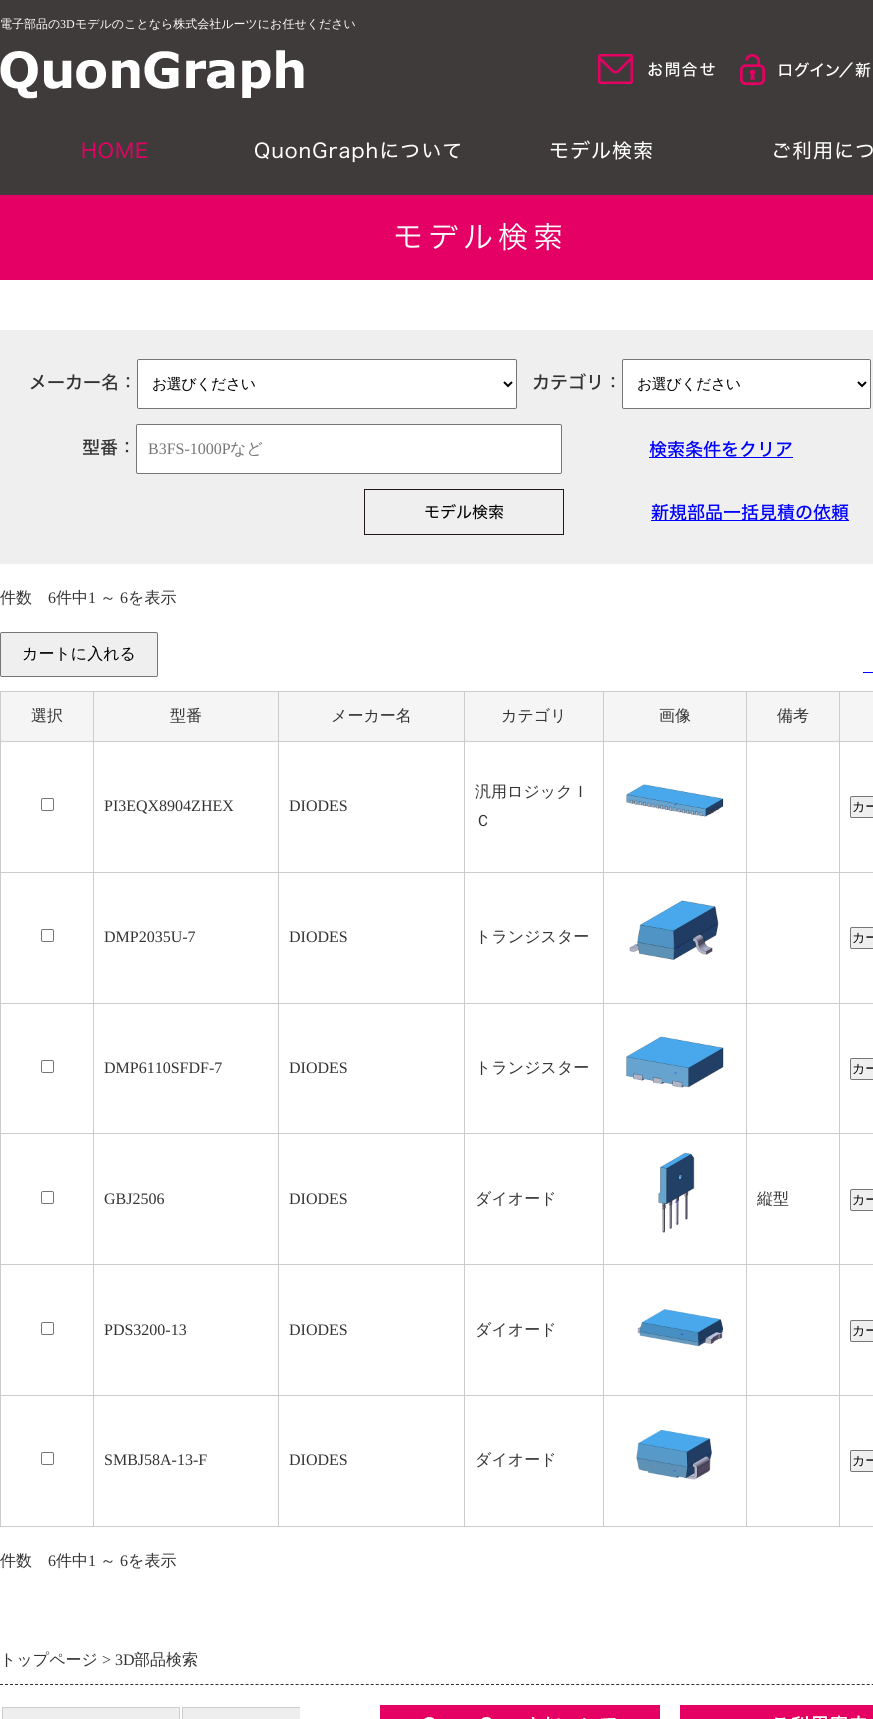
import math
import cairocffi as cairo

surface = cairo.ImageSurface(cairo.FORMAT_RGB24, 873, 1719)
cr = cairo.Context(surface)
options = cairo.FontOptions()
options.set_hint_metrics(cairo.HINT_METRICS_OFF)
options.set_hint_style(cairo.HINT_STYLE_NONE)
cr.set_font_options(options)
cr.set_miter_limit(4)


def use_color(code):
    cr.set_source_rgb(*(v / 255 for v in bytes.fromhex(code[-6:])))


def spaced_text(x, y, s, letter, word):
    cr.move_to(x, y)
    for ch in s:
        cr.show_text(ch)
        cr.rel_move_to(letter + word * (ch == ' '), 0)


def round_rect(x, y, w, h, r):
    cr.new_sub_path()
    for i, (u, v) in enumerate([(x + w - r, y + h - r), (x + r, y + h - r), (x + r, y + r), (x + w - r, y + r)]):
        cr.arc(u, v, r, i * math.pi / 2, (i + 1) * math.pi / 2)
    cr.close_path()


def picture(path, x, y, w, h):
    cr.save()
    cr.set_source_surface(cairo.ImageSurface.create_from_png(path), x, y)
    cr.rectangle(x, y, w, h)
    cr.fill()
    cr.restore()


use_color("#3f3b3a")
cr.paint()
cr.select_font_face("WenQuanYi Zen Hei Medium")
cr.set_font_size(12)
use_color("#ffffff")
cr.move_to(0, 28)
cr.show_text("電子部品の")
cr.select_font_face("Liberation Serif")
cr.move_to(60, 28)
cr.show_text("3D")
cr.select_font_face("WenQuanYi Zen Hei Medium")
cr.move_to(75, 28)
cr.show_text("モデルのことなら株式会社ルーツにお任せください")
picture("img1.png", 0, 50, 304, 49)
picture("img2.png", 598, 54, 117, 30)
picture("img3.png", 740, 54, 131, 31)
cr.select_font_face("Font")
cr.set_font_size(20)
use_color("#e50065")
spaced_text(81, 158, "HOME", 1, 0)
use_color("#ffffff")
spaced_text(254, 158, "QuonGraphについて", 1, 0)
spaced_text(549, 158, "モデル検索", 1, 0)
spaced_text(771, 158, "ご利用につ", 1, 0)
cr.rectangle(0, 280, 873, 1439)
cr.fill()
use_color("#e50065")
cr.rectangle(0, 195, 873, 85)
cr.fill()
cr.select_font_face("Font Light")
cr.set_font_size(30)
use_color("#ffffff")
spaced_text(393, 248, "モデル検索", 5, 0)
use_color("#efefef")
cr.rectangle(0, 330, 873, 234)
cr.fill()
cr.select_font_face("Font Medium")
cr.set_font_size(18)
use_color("#333333")
cr.move_to(29, 389)
cr.show_text("メーカー名：")
use_color("#ffffff")
round_rect(137.5, 359.5, 379, 49, 1.5)
cr.fill_preserve()
use_color("#767676")
cr.set_line_width(1)
cr.stroke()
cr.new_path()
cr.move_to(504, 382)
cr.line_to(508, 386)
cr.line_to(512, 382)
use_color("#000000")
cr.set_line_width(2)
cr.stroke()
cr.select_font_face("WenQuanYi Zen Hei Medium")
cr.set_font_size(15)
spaced_text(152, 389, "お選びください", -0.5, 0)
cr.select_font_face("Font Medium")
cr.set_font_size(18)
use_color("#333333")
cr.move_to(532, 389)
cr.show_text("カテゴリ：")
use_color("#ffffff")
round_rect(622.5, 359.5, 248, 49, 1.5)
cr.fill_preserve()
use_color("#767676")
cr.set_line_width(1)
cr.stroke()
cr.new_path()
cr.move_to(858, 382)
cr.line_to(862, 386)
cr.line_to(866, 382)
use_color("#000000")
cr.set_line_width(2)
cr.stroke()
cr.select_font_face("WenQuanYi Zen Hei Medium")
cr.set_font_size(15)
spaced_text(637, 389, "お選びください", -0.5, 0)
cr.select_font_face("Font Medium")
cr.set_font_size(18)
use_color("#333333")
cr.move_to(82, 454)
cr.show_text("型番：")
use_color("#ffffff")
round_rect(136.5, 424.5, 425, 49, 1.5)
cr.fill_preserve()
use_color("#767676")
cr.set_line_width(1)
cr.stroke()
cr.select_font_face("Liberation Serif")
cr.set_font_size(16)
use_color("#757575")
cr.move_to(148, 454)
cr.show_text("B3FS-1000P")
cr.select_font_face("WenQuanYi Zen Hei Medium")
cr.move_to(230, 454)
cr.show_text("など")
use_color("#0000ff")
cr.rectangle(649, 457, 144, 1)
cr.fill()
cr.select_font_face("Font Medium")
cr.set_font_size(18)
cr.move_to(649, 456)
cr.show_text("検索条件をクリア")
cr.rectangle(364.5, 489.5, 199, 45)
use_color("#231815")
cr.stroke()
cr.select_font_face("Font")
cr.set_font_size(16)
use_color("#000000")
cr.move_to(424, 518)
cr.show_text("モデル検索")
use_color("#0000ff")
cr.rectangle(651, 520, 198, 1)
cr.fill()
cr.select_font_face("Font Medium")
cr.set_font_size(18)
cr.move_to(651, 519)
cr.show_text("新規部品一括見積の依頼")
cr.select_font_face("WenQuanYi Zen Hei Medium")
cr.set_font_size(16)
use_color("#333333")
cr.move_to(0, 603)
cr.show_text("件数")
cr.select_font_face("Liberation Serif")
cr.move_to(48, 603)
cr.show_text("6")
cr.select_font_face("WenQuanYi Zen Hei Medium")
cr.move_to(56, 603)
cr.show_text("件中")
cr.select_font_face("Liberation Serif")
cr.move_to(88, 603)
cr.show_text("1")
cr.select_font_face("WenQuanYi Zen Hei Medium")
cr.move_to(100, 603)
cr.show_text("～")
cr.select_font_face("Liberation Serif")
cr.move_to(120, 603)
cr.show_text("6")
cr.select_font_face("WenQuanYi Zen Hei Medium")
cr.move_to(128, 603)
cr.show_text("を表示")
use_color("#efefef")
round_rect(0.5, 632.5, 157, 44, 1.5)
cr.fill_preserve()
use_color("#767676")
cr.stroke()
use_color("#000000")
cr.move_to(22, 659)
cr.show_text("カートに入れる")
use_color("#0000ff")
cr.rectangle(863, 672, 10, 1)
cr.fill()
use_color("#f5f5f5")
cr.rectangle(1, 692, 92, 49)
cr.fill()
use_color("#cccccc")
cr.rectangle(839, 691, 34, 1)
cr.fill()
cr.rectangle(839, 741, 34, 1)
cr.fill()
cr.rectangle(839, 872, 34, 1)
cr.fill()
cr.rectangle(839, 1003, 34, 1)
cr.fill()
cr.rectangle(839, 1133, 34, 1)
cr.fill()
cr.rectangle(839, 1264, 34, 1)
cr.fill()
cr.rectangle(839, 1395, 34, 1)
cr.fill()
cr.rectangle(839, 1526, 34, 1)
cr.fill()
cr.rectangle(839, 1395, 1, 132)
cr.fill()
cr.rectangle(746, 1395, 94, 1)
cr.fill()
cr.rectangle(839, 1264, 1, 132)
cr.fill()
cr.rectangle(746, 1264, 94, 1)
cr.fill()
cr.rectangle(839, 1133, 1, 132)
cr.fill()
cr.rectangle(746, 1133, 94, 1)
cr.fill()
cr.rectangle(839, 1003, 1, 131)
cr.fill()
cr.rectangle(746, 1003, 94, 1)
cr.fill()
cr.rectangle(839, 872, 1, 132)
cr.fill()
cr.rectangle(746, 872, 94, 1)
cr.fill()
cr.rectangle(839, 741, 1, 132)
cr.fill()
cr.rectangle(746, 741, 94, 1)
cr.fill()
cr.rectangle(839, 691, 1, 51)
cr.fill()
cr.rectangle(746, 691, 94, 1)
cr.fill()
cr.rectangle(746, 1526, 94, 1)
cr.fill()
cr.rectangle(746, 1395, 1, 132)
cr.fill()
cr.rectangle(603, 1395, 144, 1)
cr.fill()
cr.rectangle(746, 1264, 1, 132)
cr.fill()
cr.rectangle(603, 1264, 144, 1)
cr.fill()
cr.rectangle(746, 1133, 1, 132)
cr.fill()
cr.rectangle(603, 1133, 144, 1)
cr.fill()
cr.rectangle(746, 1003, 1, 131)
cr.fill()
cr.rectangle(603, 1003, 144, 1)
cr.fill()
cr.rectangle(746, 872, 1, 132)
cr.fill()
cr.rectangle(603, 872, 144, 1)
cr.fill()
cr.rectangle(746, 741, 1, 132)
cr.fill()
cr.rectangle(603, 741, 144, 1)
cr.fill()
cr.rectangle(746, 691, 1, 51)
cr.fill()
cr.rectangle(603, 691, 144, 1)
cr.fill()
cr.rectangle(603, 1526, 144, 1)
cr.fill()
cr.rectangle(603, 1395, 1, 132)
cr.fill()
cr.rectangle(464, 1395, 140, 1)
cr.fill()
cr.rectangle(603, 1264, 1, 132)
cr.fill()
cr.rectangle(464, 1264, 140, 1)
cr.fill()
cr.rectangle(603, 1133, 1, 132)
cr.fill()
cr.rectangle(464, 1133, 140, 1)
cr.fill()
cr.rectangle(603, 1003, 1, 131)
cr.fill()
cr.rectangle(464, 1003, 140, 1)
cr.fill()
cr.rectangle(603, 872, 1, 132)
cr.fill()
cr.rectangle(464, 872, 140, 1)
cr.fill()
cr.rectangle(603, 741, 1, 132)
cr.fill()
cr.rectangle(464, 741, 140, 1)
cr.fill()
cr.rectangle(603, 691, 1, 51)
cr.fill()
cr.rectangle(464, 691, 140, 1)
cr.fill()
cr.rectangle(464, 1526, 140, 1)
cr.fill()
cr.rectangle(464, 1395, 1, 132)
cr.fill()
cr.rectangle(278, 1395, 187, 1)
cr.fill()
cr.rectangle(464, 1264, 1, 132)
cr.fill()
cr.rectangle(278, 1264, 187, 1)
cr.fill()
cr.rectangle(464, 1133, 1, 132)
cr.fill()
cr.rectangle(278, 1133, 187, 1)
cr.fill()
cr.rectangle(464, 1003, 1, 131)
cr.fill()
cr.rectangle(278, 1003, 187, 1)
cr.fill()
cr.rectangle(464, 872, 1, 132)
cr.fill()
cr.rectangle(278, 872, 187, 1)
cr.fill()
cr.rectangle(464, 741, 1, 132)
cr.fill()
cr.rectangle(278, 741, 187, 1)
cr.fill()
cr.rectangle(464, 691, 1, 51)
cr.fill()
cr.rectangle(278, 691, 187, 1)
cr.fill()
cr.rectangle(278, 1526, 187, 1)
cr.fill()
cr.rectangle(278, 1395, 1, 132)
cr.fill()
cr.rectangle(93, 1395, 186, 1)
cr.fill()
cr.rectangle(278, 1264, 1, 132)
cr.fill()
cr.rectangle(93, 1264, 186, 1)
cr.fill()
cr.rectangle(278, 1133, 1, 132)
cr.fill()
cr.rectangle(93, 1133, 186, 1)
cr.fill()
cr.rectangle(278, 1003, 1, 131)
cr.fill()
cr.rectangle(93, 1003, 186, 1)
cr.fill()
cr.rectangle(278, 872, 1, 132)
cr.fill()
cr.rectangle(93, 872, 186, 1)
cr.fill()
cr.rectangle(278, 741, 1, 132)
cr.fill()
cr.rectangle(93, 741, 186, 1)
cr.fill()
cr.rectangle(278, 691, 1, 51)
cr.fill()
cr.rectangle(93, 691, 186, 1)
cr.fill()
cr.rectangle(93, 1526, 186, 1)
cr.fill()
cr.rectangle(93, 1395, 1, 132)
cr.fill()
cr.rectangle(0, 1395, 94, 1)
cr.fill()
cr.rectangle(93, 1264, 1, 132)
cr.fill()
cr.rectangle(0, 1264, 94, 1)
cr.fill()
cr.rectangle(93, 1133, 1, 132)
cr.fill()
cr.rectangle(0, 1133, 94, 1)
cr.fill()
cr.rectangle(93, 1003, 1, 131)
cr.fill()
cr.rectangle(0, 1003, 94, 1)
cr.fill()
cr.rectangle(93, 872, 1, 132)
cr.fill()
cr.rectangle(0, 872, 94, 1)
cr.fill()
cr.rectangle(93, 741, 1, 132)
cr.fill()
cr.rectangle(0, 741, 94, 1)
cr.fill()
cr.rectangle(93, 691, 1, 51)
cr.fill()
cr.rectangle(0, 691, 94, 1)
cr.fill()
cr.rectangle(0, 1526, 94, 1)
cr.fill()
cr.rectangle(0, 1395, 1, 132)
cr.fill()
cr.rectangle(0, 1264, 1, 132)
cr.fill()
cr.rectangle(0, 1133, 1, 132)
cr.fill()
cr.rectangle(0, 1003, 1, 131)
cr.fill()
cr.rectangle(0, 872, 1, 132)
cr.fill()
cr.rectangle(0, 741, 1, 132)
cr.fill()
cr.rectangle(0, 691, 1, 51)
cr.fill()
use_color("#333333")
cr.move_to(31, 721)
cr.show_text("選択")
use_color("#f5f5f5")
cr.rectangle(94, 692, 184, 49)
cr.fill()
use_color("#333333")
cr.move_to(170, 721)
cr.show_text("型番")
use_color("#f5f5f5")
cr.rectangle(279, 692, 185, 49)
cr.fill()
use_color("#333333")
cr.move_to(331, 721)
cr.show_text("メーカー名")
use_color("#f5f5f5")
cr.rectangle(465, 692, 138, 49)
cr.fill()
use_color("#333333")
cr.move_to(501, 721)
cr.show_text("カテゴリ")
use_color("#f5f5f5")
cr.rectangle(604, 692, 142, 49)
cr.fill()
use_color("#333333")
cr.move_to(659, 721)
cr.show_text("画像")
use_color("#f5f5f5")
cr.rectangle(747, 692, 92, 49)
cr.fill()
use_color("#333333")
cr.move_to(777, 721)
cr.show_text("備考")
use_color("#f5f5f5")
cr.rectangle(840, 692, 33, 49)
cr.fill()
round_rect(41.5, 798.5, 12, 12, 1.5)
use_color("#767676")
cr.stroke()
cr.select_font_face("Liberation Serif")
use_color("#333333")
cr.move_to(104, 811)
cr.show_text("PI3EQX8904ZHEX")
cr.move_to(289, 811)
cr.show_text("DIODES")
cr.select_font_face("WenQuanYi Zen Hei Medium")
cr.move_to(475, 797)
cr.show_text("汎用ロジックＩ")
cr.move_to(475, 826)
cr.show_text("Ｃ")
picture("img4.png", 626, 784, 98, 33)
use_color("#efefef")
round_rect(850.5, 796.5, 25, 21, 1.5)
cr.fill_preserve()
use_color("#767676")
cr.stroke()
cr.set_font_size(13)
use_color("#000000")
cr.move_to(852, 811)
cr.show_text("カー")
round_rect(41.5, 929.5, 12, 12, 1.5)
use_color("#767676")
cr.stroke()
cr.select_font_face("Liberation Serif")
cr.set_font_size(16)
use_color("#333333")
cr.move_to(104, 942)
cr.show_text("DMP2035U-7")
cr.move_to(289, 942)
cr.show_text("DIODES")
cr.select_font_face("WenQuanYi Zen Hei Medium")
cr.move_to(475, 942)
cr.show_text("トランジスター")
picture("img5.png", 629, 900, 90, 60)
use_color("#efefef")
round_rect(850.5, 927.5, 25, 21, 1.5)
cr.fill_preserve()
use_color("#767676")
cr.stroke()
cr.set_font_size(13)
use_color("#000000")
cr.move_to(852, 942)
cr.show_text("カー")
round_rect(41.5, 1060.5, 12, 12, 1.5)
use_color("#767676")
cr.stroke()
cr.select_font_face("Liberation Serif")
cr.set_font_size(16)
use_color("#333333")
cr.move_to(104, 1073)
cr.show_text("DMP6110SFDF-7")
cr.move_to(289, 1073)
cr.show_text("DIODES")
cr.select_font_face("WenQuanYi Zen Hei Medium")
cr.move_to(475, 1073)
cr.show_text("トランジスター")
picture("img6.png", 626, 1036, 98, 52)
use_color("#efefef")
round_rect(850.5, 1058.5, 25, 21, 1.5)
cr.fill_preserve()
use_color("#767676")
cr.stroke()
cr.set_font_size(13)
use_color("#000000")
cr.move_to(852, 1073)
cr.show_text("カー")
round_rect(41.5, 1191.5, 12, 12, 1.5)
use_color("#767676")
cr.stroke()
cr.select_font_face("Liberation Serif")
cr.set_font_size(16)
use_color("#333333")
cr.move_to(104, 1204)
cr.show_text("GBJ2506")
cr.move_to(289, 1204)
cr.show_text("DIODES")
cr.select_font_face("WenQuanYi Zen Hei Medium")
cr.move_to(475, 1204)
cr.show_text("ダイオード")
picture("img7.png", 658, 1152, 37, 81)
cr.move_to(757, 1204)
cr.show_text("縦型")
use_color("#efefef")
round_rect(850.5, 1189.5, 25, 21, 1.5)
cr.fill_preserve()
use_color("#767676")
cr.stroke()
cr.set_font_size(13)
use_color("#000000")
cr.move_to(852, 1204)
cr.show_text("カー")
round_rect(41.5, 1322.5, 12, 12, 1.5)
use_color("#767676")
cr.stroke()
cr.select_font_face("Liberation Serif")
cr.set_font_size(16)
use_color("#333333")
cr.move_to(104, 1335)
cr.show_text("PDS3200-13")
cr.move_to(289, 1335)
cr.show_text("DIODES")
cr.select_font_face("WenQuanYi Zen Hei Medium")
cr.move_to(475, 1335)
cr.show_text("ダイオード")
picture("img8.png", 637, 1309, 86, 38)
use_color("#efefef")
round_rect(850.5, 1320.5, 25, 21, 1.5)
cr.fill_preserve()
use_color("#767676")
cr.stroke()
cr.set_font_size(13)
use_color("#000000")
cr.move_to(852, 1335)
cr.show_text("カー")
round_rect(41.5, 1452.5, 12, 12, 1.5)
use_color("#767676")
cr.stroke()
cr.select_font_face("Liberation Serif")
cr.set_font_size(16)
use_color("#333333")
cr.move_to(104, 1465)
cr.show_text("SMBJ58A-13-F")
cr.move_to(289, 1465)
cr.show_text("DIODES")
cr.select_font_face("WenQuanYi Zen Hei Medium")
cr.move_to(475, 1465)
cr.show_text("ダイオード")
picture("img9.png", 636, 1430, 76, 50)
use_color("#efefef")
round_rect(850.5, 1450.5, 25, 21, 1.5)
cr.fill_preserve()
use_color("#767676")
cr.stroke()
cr.set_font_size(13)
use_color("#000000")
cr.move_to(852, 1465)
cr.show_text("カー")
cr.set_font_size(16)
use_color("#333333")
cr.move_to(0, 1566)
cr.show_text("件数")
cr.select_font_face("Liberation Serif")
cr.move_to(48, 1566)
cr.show_text("6")
cr.select_font_face("WenQuanYi Zen Hei Medium")
cr.move_to(56, 1566)
cr.show_text("件中")
cr.select_font_face("Liberation Serif")
cr.move_to(88, 1566)
cr.show_text("1")
cr.select_font_face("WenQuanYi Zen Hei Medium")
cr.move_to(100, 1566)
cr.show_text("～")
cr.select_font_face("Liberation Serif")
cr.move_to(120, 1566)
cr.show_text("6")
cr.select_font_face("WenQuanYi Zen Hei Medium")
cr.move_to(128, 1566)
cr.show_text("を表示")
cr.new_path()
cr.move_to(0, 1684.5)
cr.line_to(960, 1684.5)
cr.set_dash([3, 2.01])
cr.stroke()
cr.move_to(0, 1665)
cr.show_text("トップページ")
cr.select_font_face("Liberation Serif")
cr.move_to(102, 1665)
cr.show_text("> 3D")
cr.select_font_face("WenQuanYi Zen Hei Medium")
cr.move_to(134, 1665)
cr.show_text("部品検索")
picture("img10.png", 2, 1707, 298, 12)
picture("img11.png", 380, 1705, 280, 14)
picture("img12.png", 680, 1705, 193, 14)
surface.write_to_png("result.png")
